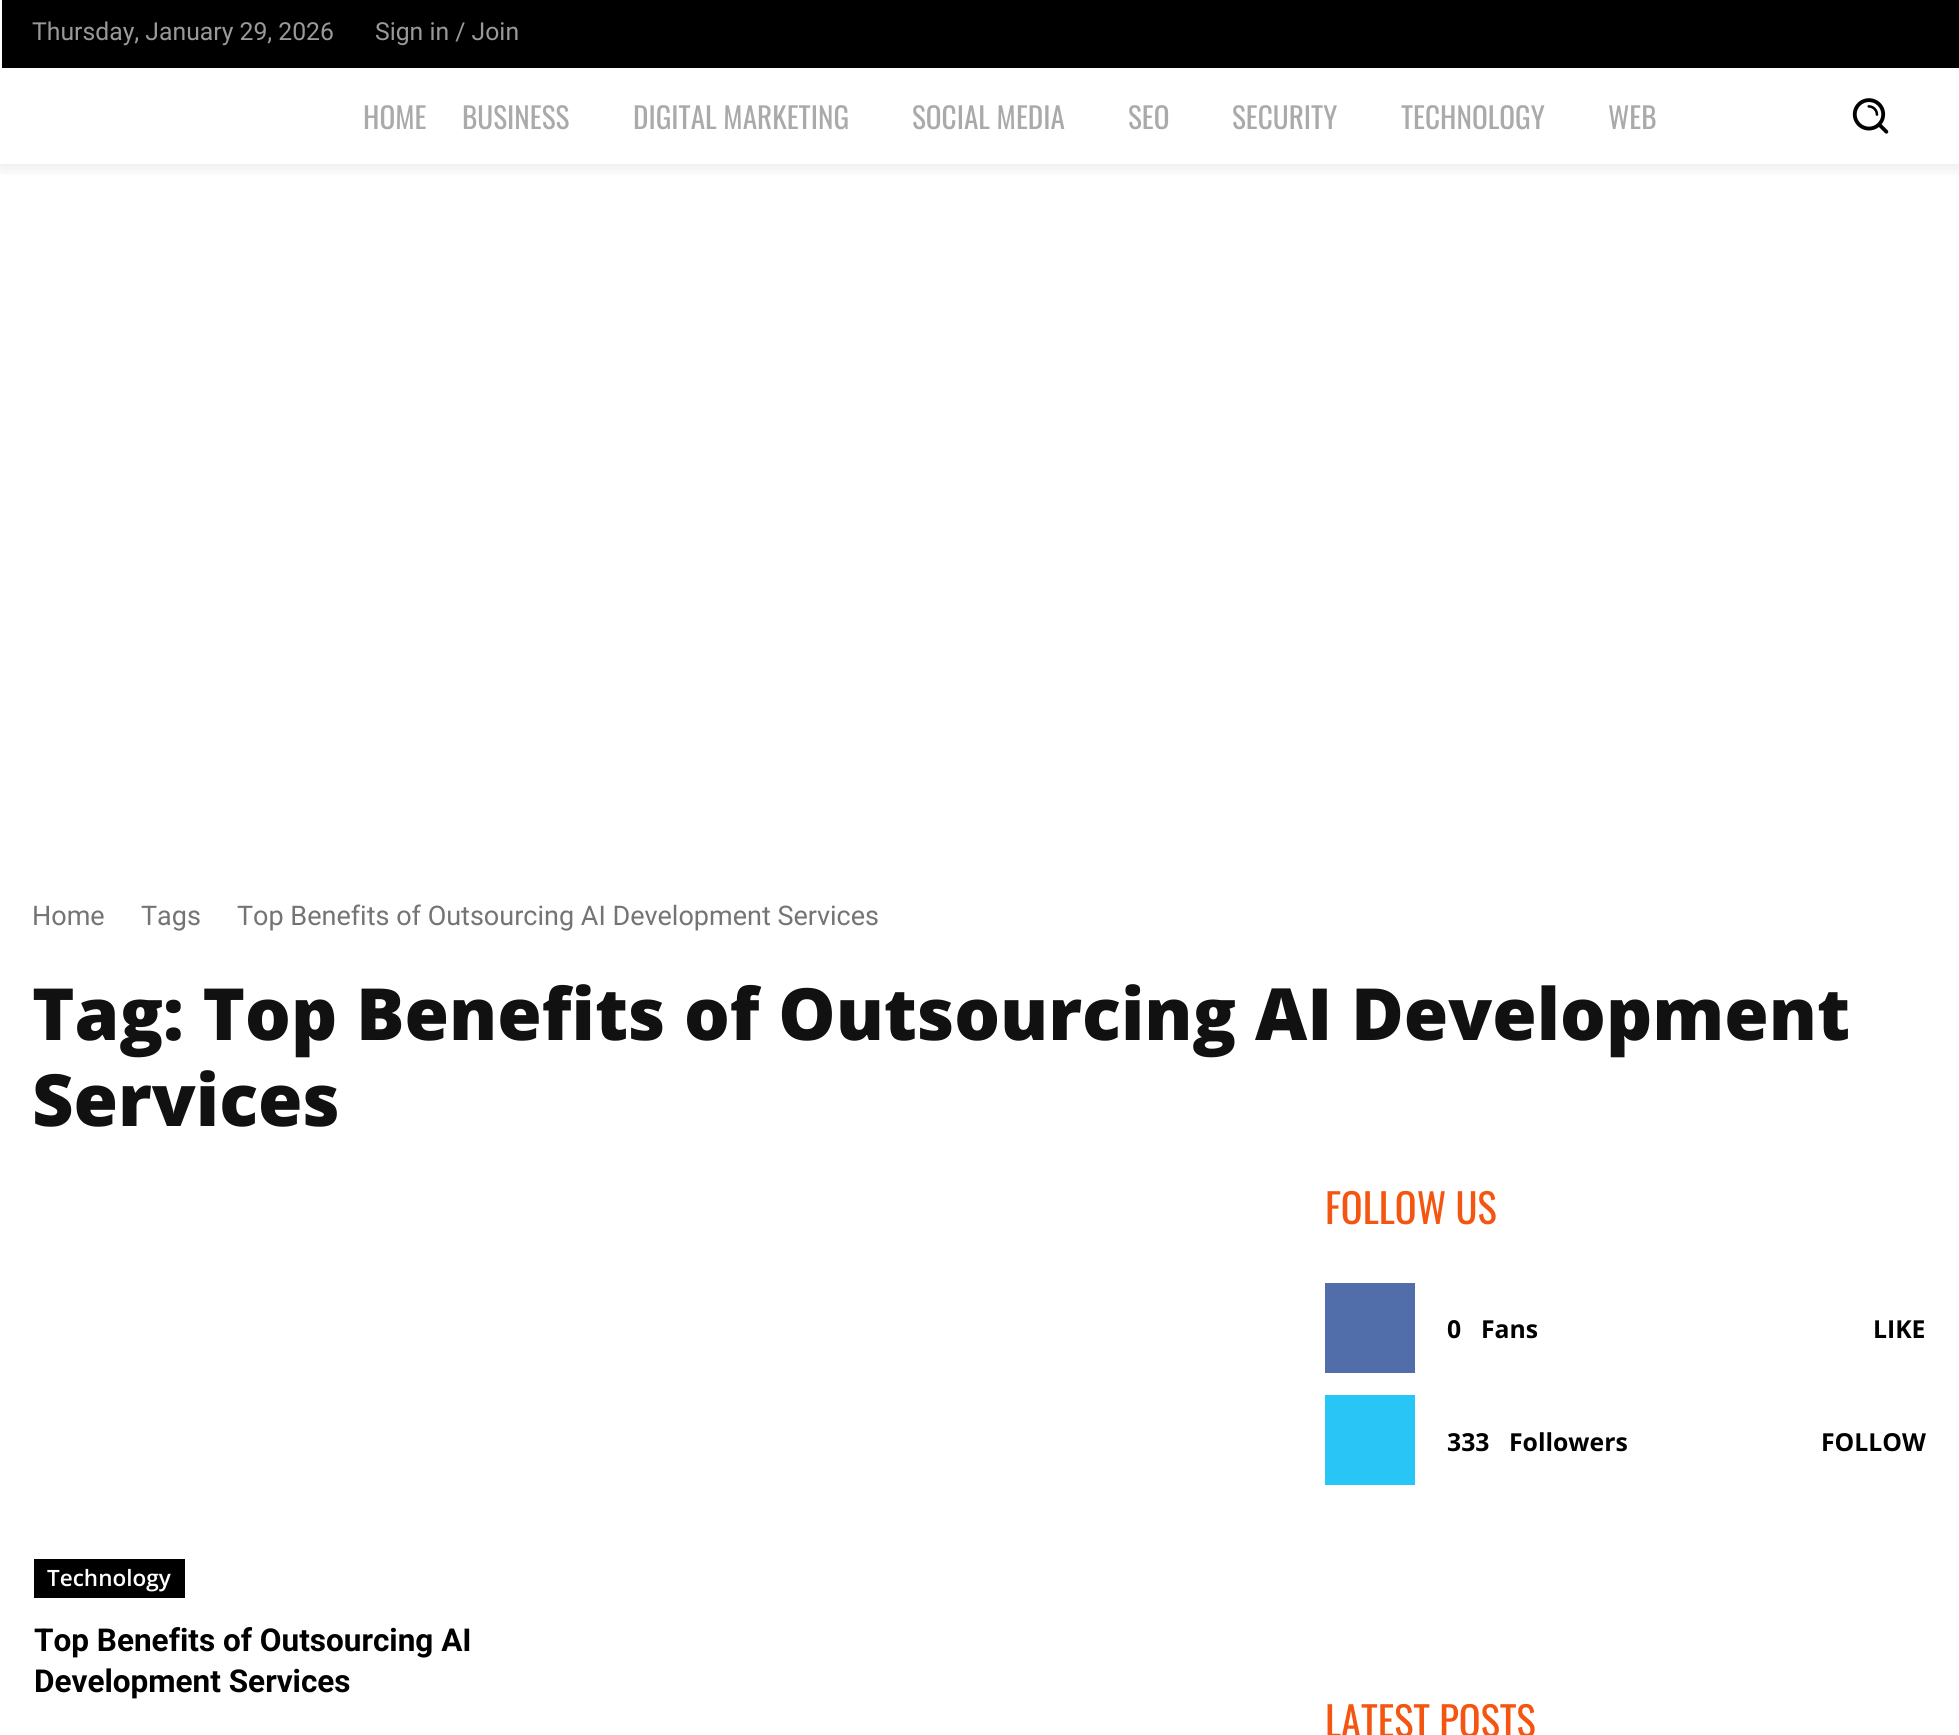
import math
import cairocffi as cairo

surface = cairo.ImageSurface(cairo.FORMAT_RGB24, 1959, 1735)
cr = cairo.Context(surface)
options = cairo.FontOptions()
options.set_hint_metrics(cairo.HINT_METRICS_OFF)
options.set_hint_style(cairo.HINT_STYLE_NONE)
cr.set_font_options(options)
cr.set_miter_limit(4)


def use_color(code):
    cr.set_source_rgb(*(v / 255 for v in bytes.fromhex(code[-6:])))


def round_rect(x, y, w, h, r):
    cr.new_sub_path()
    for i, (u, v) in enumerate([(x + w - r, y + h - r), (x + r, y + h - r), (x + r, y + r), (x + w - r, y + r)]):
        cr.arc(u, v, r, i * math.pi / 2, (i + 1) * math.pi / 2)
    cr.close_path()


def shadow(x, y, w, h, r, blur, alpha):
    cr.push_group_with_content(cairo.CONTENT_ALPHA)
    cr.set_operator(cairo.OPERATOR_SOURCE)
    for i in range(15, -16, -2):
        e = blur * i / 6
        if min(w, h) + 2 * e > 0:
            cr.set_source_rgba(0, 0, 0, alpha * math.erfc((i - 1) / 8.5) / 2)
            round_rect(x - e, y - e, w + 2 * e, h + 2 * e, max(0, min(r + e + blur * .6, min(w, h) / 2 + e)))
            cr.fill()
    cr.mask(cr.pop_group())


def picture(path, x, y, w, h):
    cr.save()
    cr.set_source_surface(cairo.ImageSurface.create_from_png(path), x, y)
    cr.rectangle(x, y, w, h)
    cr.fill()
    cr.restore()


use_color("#ffffff")
cr.paint()
cr.save()
cr.rectangle(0, 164, 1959, 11)
cr.clip()
use_color("#000000")
shadow(0, 0, 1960, 164, 0, 11, 0.12)
cr.restore()
use_color("#000000")
cr.rectangle(2, 0, 1957, 68)
cr.fill()
cr.select_font_face("Roboto")
cr.set_font_size(24.75)
use_color("#999999")
cr.move_to(32, 40)
cr.show_text("Thursday, January 29, 2026")
cr.move_to(375, 40)
cr.show_text("Sign in / Join")
cr.select_font_face("Oswald")
cr.set_font_size(29.25)
use_color("#aaaaaa")
cr.move_to(363, 129)
cr.show_text("HOME")
cr.move_to(462, 129)
cr.show_text("BUSINESS")
cr.move_to(633, 129)
cr.show_text("DIGITAL MARKETING")
cr.move_to(912, 129)
cr.show_text("SOCIAL MEDIA")
cr.move_to(1128, 129)
cr.show_text("SEO")
cr.move_to(1232, 129)
cr.show_text("SECURITY")
cr.move_to(1401, 129)
cr.show_text("TECHNOLOGY")
cr.move_to(1608, 129)
cr.show_text("WEB")
picture("img1.png", 1852, 98, 37, 36)
cr.select_font_face("Roboto")
cr.set_font_size(27)
use_color("#747474")
cr.move_to(32, 925)
cr.show_text("Home")
cr.move_to(141, 925)
cr.show_text("Tags")
cr.move_to(237, 925)
cr.show_text("Top Benefits of Outsourcing AI Development Services")
cr.select_font_face("Open Sans ExtraBold")
cr.set_font_size(72)
use_color("#111111")
cr.move_to(32, 1040)
cr.show_text("Tag: Top Benefits of Outsourcing AI Development")
cr.move_to(32, 1126)
cr.show_text("Services")
use_color("#000000")
cr.rectangle(34, 1559, 151, 39)
cr.fill()
cr.select_font_face("Open Sans SemiBold")
cr.set_font_size(22.5)
use_color("#ffffff")
cr.move_to(47, 1586)
cr.show_text("Technology")
cr.select_font_face("Roboto", cairo.FONT_SLANT_NORMAL, cairo.FONT_WEIGHT_BOLD)
cr.set_font_size(31.5)
use_color("#000000")
cr.move_to(34, 1651)
cr.show_text("Top Benefits of Outsourcing AI")
cr.move_to(34, 1692)
cr.show_text("Development Services")
cr.select_font_face("Oswald")
cr.set_font_size(40.5)
use_color("#f45511")
cr.move_to(1325, 1224)
cr.show_text("FOLLOW US")
use_color("#516eab")
cr.rectangle(1325, 1283, 90, 90)
cr.fill()
cr.select_font_face("Open Sans", cairo.FONT_SLANT_NORMAL, cairo.FONT_WEIGHT_BOLD)
cr.set_font_size(24.75)
use_color("#000000")
cr.move_to(1447, 1338)
cr.show_text("0")
cr.move_to(1481, 1338)
cr.show_text("Fans")
cr.move_to(1873, 1338)
cr.show_text("LIKE")
use_color("#29c5f6")
cr.rectangle(1325, 1395, 90, 90)
cr.fill()
use_color("#000000")
cr.move_to(1447, 1451)
cr.show_text("333")
cr.move_to(1509, 1451)
cr.show_text("Followers")
cr.move_to(1821, 1451)
cr.show_text("FOLLOW")
cr.select_font_face("Oswald")
cr.set_font_size(40.5)
use_color("#f45511")
cr.move_to(1325, 1737)
cr.show_text("LATEST POSTS")
surface.write_to_png("result.png")
